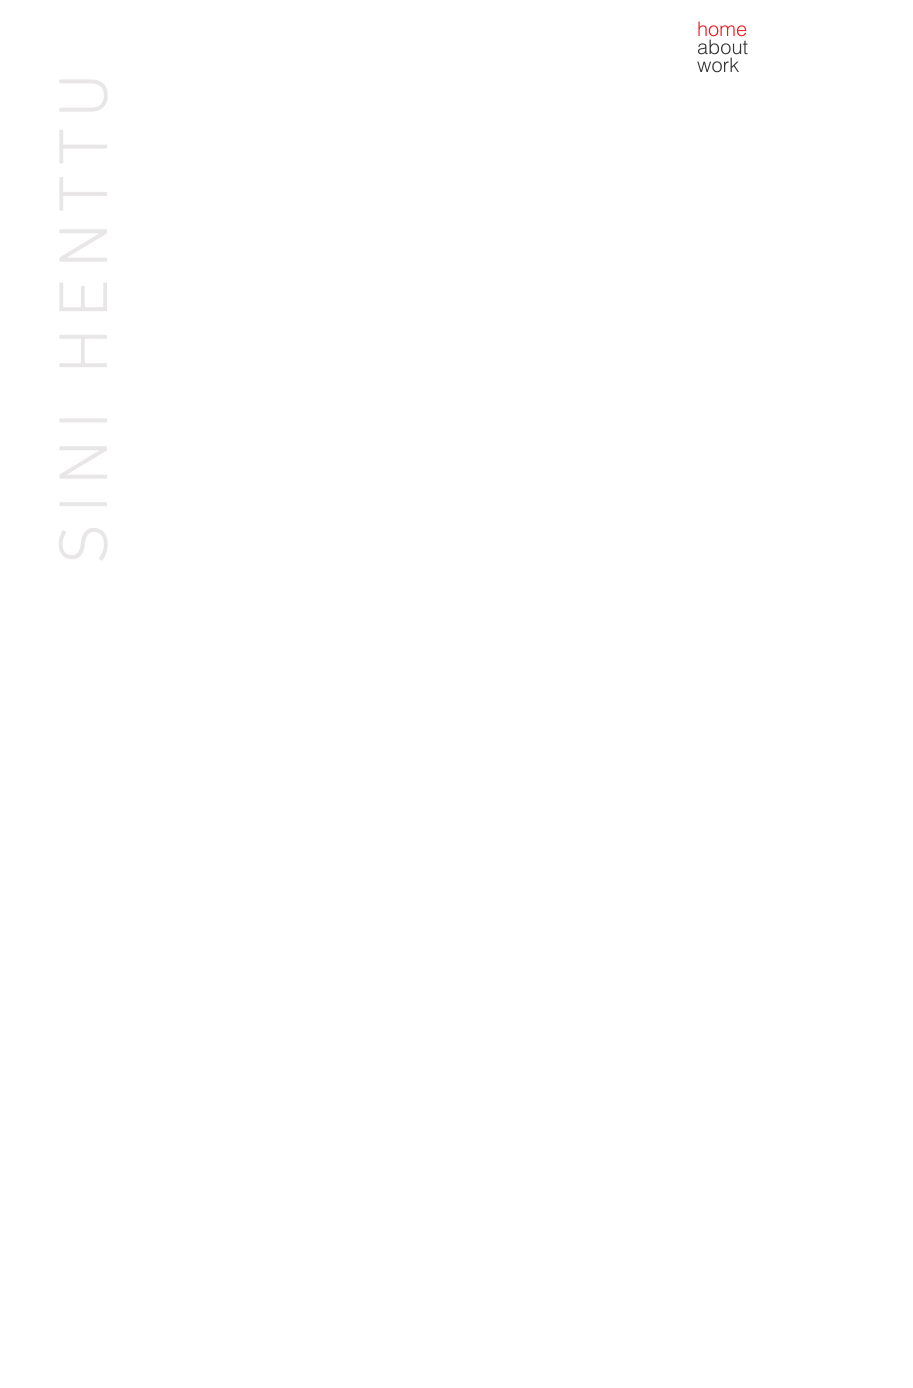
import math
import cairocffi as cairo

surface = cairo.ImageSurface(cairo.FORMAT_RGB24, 913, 1388)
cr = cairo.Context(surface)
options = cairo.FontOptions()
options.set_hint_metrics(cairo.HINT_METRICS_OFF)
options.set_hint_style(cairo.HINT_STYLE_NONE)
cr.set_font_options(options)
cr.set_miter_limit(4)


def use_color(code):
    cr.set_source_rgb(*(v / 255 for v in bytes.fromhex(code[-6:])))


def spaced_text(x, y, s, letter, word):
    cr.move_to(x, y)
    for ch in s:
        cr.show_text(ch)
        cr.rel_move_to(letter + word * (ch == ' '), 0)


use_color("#ffffff")
cr.paint()
cr.select_font_face("helvetica Light")
cr.set_font_size(20)
use_color("#e21c21")
cr.move_to(697, 36)
cr.show_text("home")
use_color("#363333")
cr.move_to(697, 54)
cr.show_text("about")
cr.move_to(697, 72)
cr.show_text("work")
cr.select_font_face("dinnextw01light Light")
cr.set_font_size(70)
use_color("#e8e6e6")
cr.save()
cr.translate(107, 565)
cr.rotate(-90 * math.pi / 180)
spaced_text(0, 0, "SINI HENTTU", 10.5, 0)
cr.restore()
surface.write_to_png("result.png")
